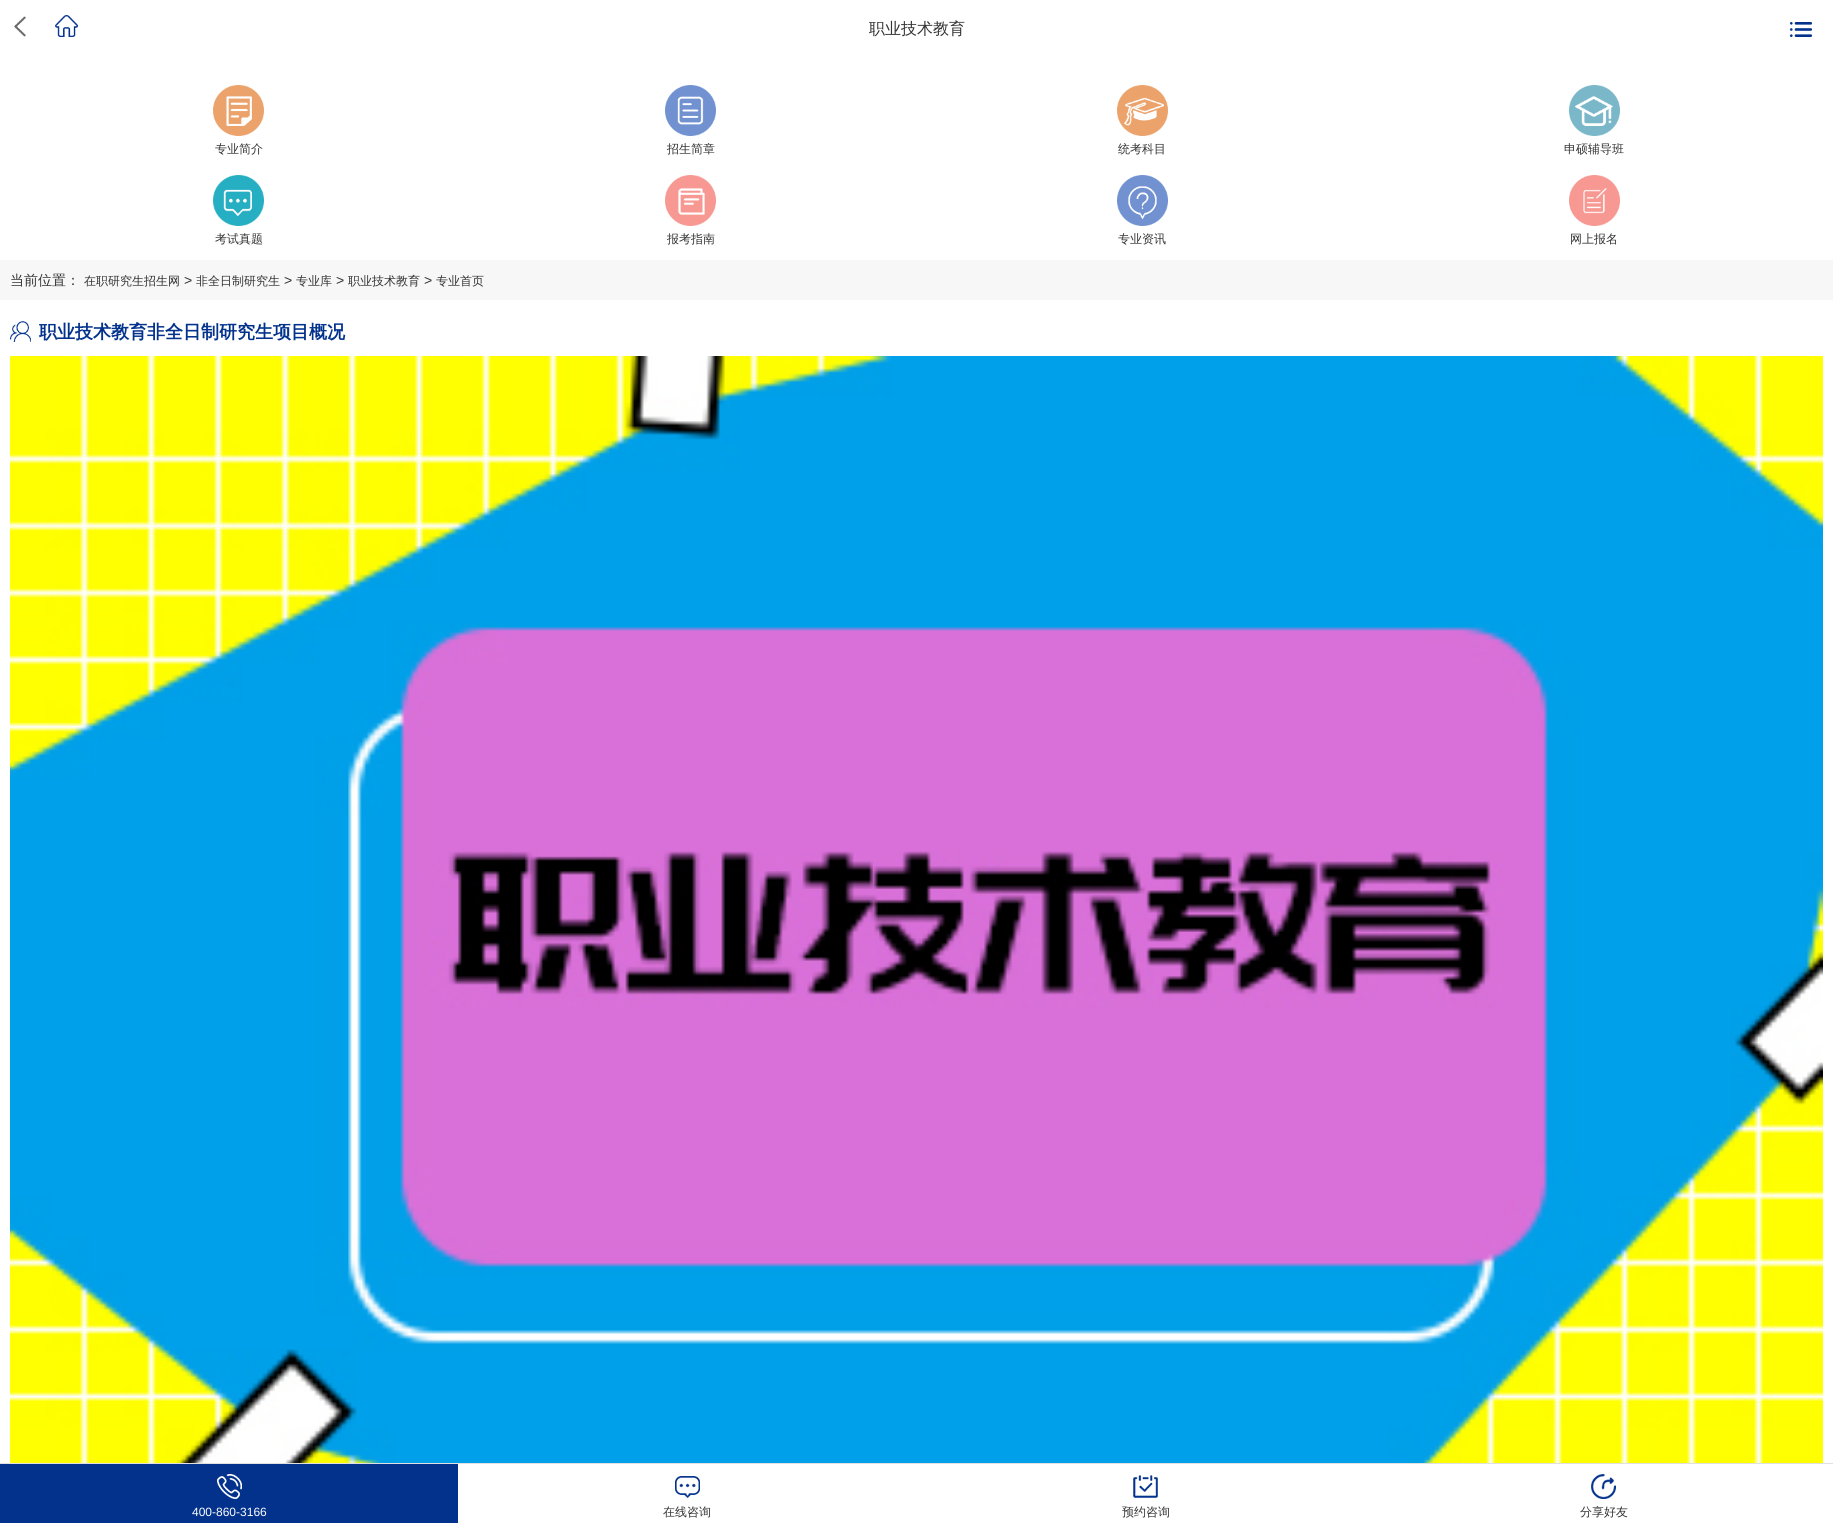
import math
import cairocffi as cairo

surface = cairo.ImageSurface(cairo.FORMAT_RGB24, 1833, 1523)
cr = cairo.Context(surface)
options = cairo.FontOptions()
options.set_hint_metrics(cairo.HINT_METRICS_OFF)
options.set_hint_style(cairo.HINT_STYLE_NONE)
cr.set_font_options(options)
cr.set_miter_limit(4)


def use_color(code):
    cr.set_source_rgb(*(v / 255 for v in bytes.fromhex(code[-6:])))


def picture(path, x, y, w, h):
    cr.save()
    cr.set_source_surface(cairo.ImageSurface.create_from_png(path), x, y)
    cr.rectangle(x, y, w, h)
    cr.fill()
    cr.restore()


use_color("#f7f7f7")
cr.paint()
use_color("#ffffff")
cr.rectangle(0, 0, 1833, 260)
cr.fill()
picture("img1.png", 14, 16, 12, 21)
picture("img2.png", 55, 15, 23, 22)
cr.select_font_face("WenQuanYi Zen Hei Medium")
cr.set_font_size(16)
use_color("#333333")
cr.move_to(869, 34)
cr.show_text("职业技术教育")
picture("img3.png", 1790, 22, 22, 15)
picture("img4.png", 213, 85, 51, 51)
cr.set_font_size(12)
cr.move_to(215, 153)
cr.show_text("专业简介")
picture("img5.png", 665, 85, 51, 51)
cr.move_to(667, 153)
cr.show_text("招生简章")
picture("img6.png", 1117, 85, 51, 51)
cr.move_to(1118, 153)
cr.show_text("统考科目")
picture("img7.png", 1569, 85, 51, 51)
cr.move_to(1564, 153)
cr.show_text("申硕辅导班")
picture("img8.png", 213, 175, 51, 51)
cr.move_to(215, 243)
cr.show_text("考试真题")
picture("img9.png", 665, 175, 51, 51)
cr.move_to(667, 243)
cr.show_text("报考指南")
picture("img10.png", 1117, 175, 51, 51)
cr.move_to(1118, 243)
cr.show_text("专业资讯")
picture("img11.png", 1569, 175, 51, 51)
cr.move_to(1570, 243)
cr.show_text("网上报名")
cr.set_font_size(14)
cr.move_to(10, 285)
cr.show_text("当前位置：")
cr.set_font_size(12)
cr.move_to(84, 285)
cr.show_text("在职研究生招生网")
cr.select_font_face("Liberation Sans")
cr.set_font_size(14)
cr.move_to(184, 285)
cr.show_text(">")
cr.select_font_face("WenQuanYi Zen Hei Medium")
cr.set_font_size(12)
cr.move_to(196, 285)
cr.show_text("非全日制研究生")
cr.select_font_face("Liberation Sans")
cr.set_font_size(14)
cr.move_to(284, 285)
cr.show_text(">")
cr.select_font_face("WenQuanYi Zen Hei Medium")
cr.set_font_size(12)
cr.move_to(296, 285)
cr.show_text("专业库")
cr.select_font_face("Liberation Sans")
cr.set_font_size(14)
cr.move_to(336, 285)
cr.show_text(">")
cr.select_font_face("WenQuanYi Zen Hei Medium")
cr.set_font_size(12)
cr.move_to(348, 285)
cr.show_text("职业技术教育")
cr.select_font_face("Liberation Sans")
cr.set_font_size(14)
cr.move_to(424, 285)
cr.show_text(">")
cr.select_font_face("WenQuanYi Zen Hei Medium")
cr.set_font_size(12)
cr.move_to(436, 285)
cr.show_text("专业首页")
use_color("#ffffff")
cr.rectangle(0, 300, 1833, 1163)
cr.fill()
picture("img12.png", 10, 321, 21, 21)
cr.select_font_face("WenQuanYi Zen Hei", cairo.FONT_SLANT_NORMAL, cairo.FONT_WEIGHT_BOLD)
cr.set_font_size(18)
use_color("#03328d")
cr.move_to(39, 338)
cr.show_text("职业技术教育非全日制研究生项目概况")
picture("img13.png", 10, 356, 1813, 1107)
use_color("#ffffff")
cr.rectangle(458, 1464, 1375, 59)
cr.fill()
use_color("#e0e0e0")
cr.rectangle(0, 1463, 1833, 1)
cr.fill()
use_color("#03328d")
cr.rectangle(0, 1464, 458, 59)
cr.fill()
picture("img14.png", 217, 1474, 25, 25)
cr.select_font_face("Liberation Sans")
cr.set_font_size(12)
use_color("#ffffff")
cr.move_to(192, 1516)
cr.show_text("400-860-3166")
picture("img15.png", 675, 1476, 25, 22)
cr.select_font_face("WenQuanYi Zen Hei Medium")
use_color("#333333")
cr.move_to(663, 1516)
cr.show_text("在线咨询")
picture("img16.png", 1133, 1475, 25, 23)
cr.move_to(1122, 1516)
cr.show_text("预约咨询")
picture("img17.png", 1591, 1474, 25, 25)
cr.move_to(1580, 1516)
cr.show_text("分享好友")
surface.write_to_png("result.png")
